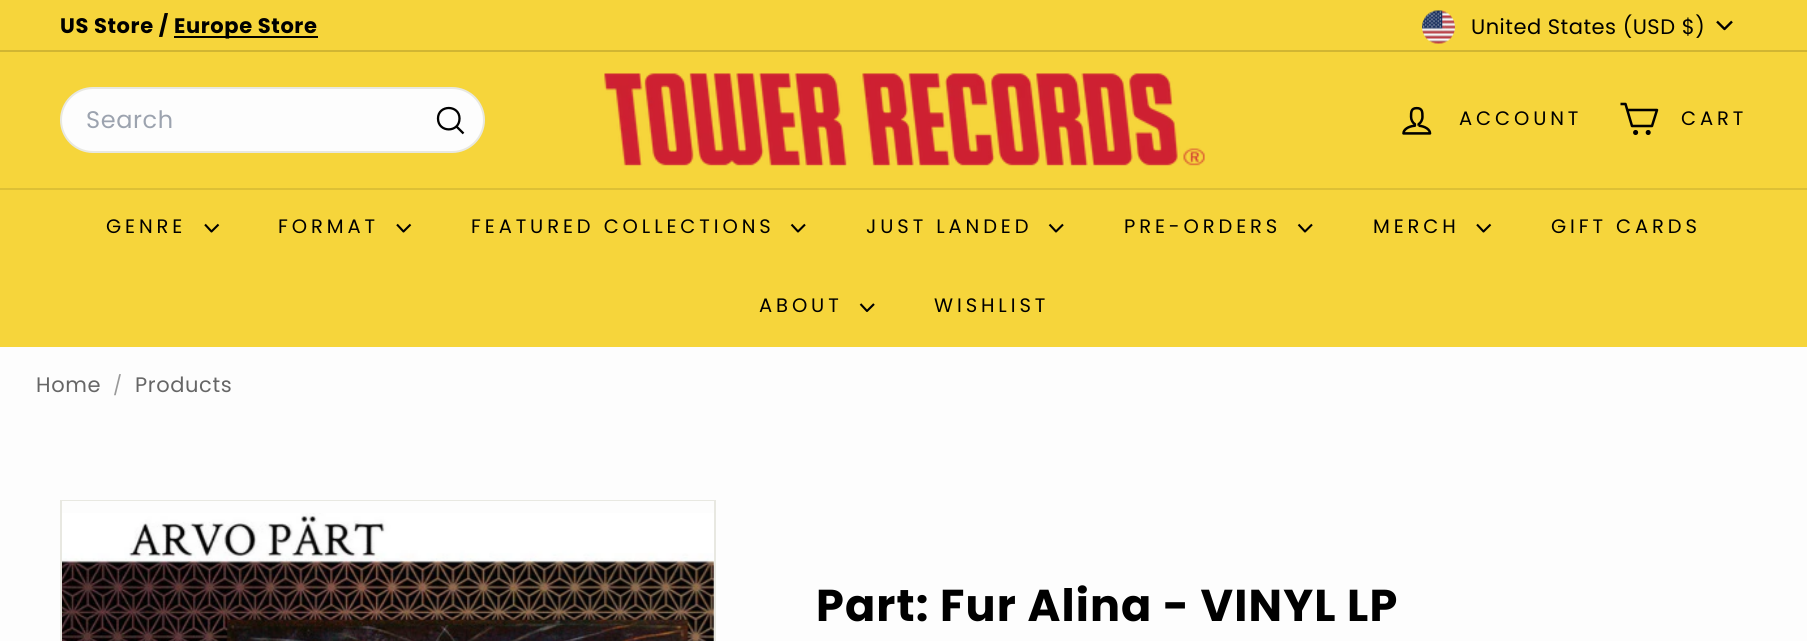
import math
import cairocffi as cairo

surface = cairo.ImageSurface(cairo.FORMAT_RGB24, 1807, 641)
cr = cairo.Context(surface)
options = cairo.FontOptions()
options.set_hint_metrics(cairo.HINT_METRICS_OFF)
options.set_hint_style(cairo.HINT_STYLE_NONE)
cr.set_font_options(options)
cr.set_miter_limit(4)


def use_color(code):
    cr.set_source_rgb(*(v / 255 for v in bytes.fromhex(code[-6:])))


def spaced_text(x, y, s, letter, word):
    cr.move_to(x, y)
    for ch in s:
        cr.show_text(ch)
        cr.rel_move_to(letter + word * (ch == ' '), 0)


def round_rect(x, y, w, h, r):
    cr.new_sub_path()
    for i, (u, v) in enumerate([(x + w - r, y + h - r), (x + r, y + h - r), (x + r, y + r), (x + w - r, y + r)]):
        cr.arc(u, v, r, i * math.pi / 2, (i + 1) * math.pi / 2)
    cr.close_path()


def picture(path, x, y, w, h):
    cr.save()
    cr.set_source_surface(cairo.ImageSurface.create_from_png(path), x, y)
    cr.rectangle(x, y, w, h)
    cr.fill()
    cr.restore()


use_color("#fdfdfd")
cr.paint()
use_color("#f6d53b")
cr.rectangle(0, 0, 1807, 50)
cr.fill()
cr.select_font_face("Poppins", cairo.FONT_SLANT_NORMAL, cairo.FONT_WEIGHT_BOLD)
cr.set_font_size(21)
use_color("#000000")
spaced_text(60, 33, "US Store /", 0.6, 0)
cr.rectangle(174, 36, 144, 2)
cr.fill()
spaced_text(174, 33, "Europe Store", 0.6, 0)
picture("img1.png", 1422, 10, 33, 34)
cr.select_font_face("Poppins")
spaced_text(1471, 34, "United States (USD $)", 0.5, 0)
cr.new_path()
cr.move_to(1717, 21.5)
cr.line_to(1724.5, 29)
cr.line_to(1732, 21.5)
cr.set_line_width(2.4)
cr.set_line_join(cairo.LINE_JOIN_ROUND)
cr.stroke()
use_color("#d1b532")
cr.rectangle(0, 50, 1807, 2)
cr.fill()
use_color("#f6d53b")
cr.rectangle(0, 52, 1807, 136)
cr.fill()
use_color("#fdfdfd")
round_rect(61, 88, 423, 64, 32)
cr.fill_preserve()
use_color("#e8e8e1")
cr.set_line_width(2)
cr.set_line_join(cairo.LINE_JOIN_MITER)
cr.stroke()
cr.set_font_size(24)
use_color("#9ca3af")
spaced_text(86, 128, "Search", 0.6, 0)
cr.new_path()
cr.move_to(459.5, 118.5)
cr.curve_to(459.5, 133, 438, 133, 438, 118.5)
cr.curve_to(438, 104.5, 459.5, 104.5, 459.5, 118.5)
cr.move_to(463.5, 133.5)
cr.line_to(456.5, 126.5)
use_color("#000000")
cr.set_line_width(2.3)
cr.set_line_join(cairo.LINE_JOIN_ROUND)
cr.stroke()
picture("img2.png", 604, 73, 601, 93)
picture("img3.png", 1402, 106, 30, 29)
cr.set_font_size(19.5)
spaced_text(1459, 125, "ACCOUNT", 3.9, 0)
cr.new_path()
cr.move_to(1627.5, 110)
cr.line_to(1657, 110)
cr.line_to(1652, 126)
cr.line_to(1632, 126)
cr.line_to(1625.5, 104)
cr.line_to(1620.5, 104)
cr.set_line_width(2.5)
cr.stroke()
cr.arc(1635.6, 132.5, 1.3, 0, 2 * math.pi)
cr.set_line_join(cairo.LINE_JOIN_MITER)
cr.stroke()
cr.arc(1648.2, 132.5, 1.3, 0, 2 * math.pi)
cr.stroke()
spaced_text(1681, 125, "CART", 3.9, 0)
use_color("#f6d53b")
cr.rectangle(0, 190, 1807, 157)
cr.fill()
use_color("#ddc035")
cr.rectangle(0, 188, 1807, 2)
cr.fill()
use_color("#000000")
spaced_text(106, 233, "GENRE", 3.9, 0)
cr.new_path()
cr.move_to(205, 224.5)
cr.line_to(211.5, 231.5)
cr.line_to(218.5, 224.5)
cr.set_line_width(2.1)
cr.set_line_join(cairo.LINE_JOIN_ROUND)
cr.stroke()
spaced_text(278, 233, "FORMAT", 3.9, 0)
cr.new_path()
cr.move_to(397, 224.5)
cr.line_to(403.5, 231.5)
cr.line_to(410.5, 224.5)
cr.stroke()
spaced_text(471, 233, "FEATURED COLLECTIONS", 3.9, 0)
cr.new_path()
cr.move_to(791.5, 224.5)
cr.line_to(798, 231.5)
cr.line_to(805, 224.5)
cr.stroke()
spaced_text(866, 233, "JUST LANDED", 3.9, 0)
cr.new_path()
cr.move_to(1049.5, 224.5)
cr.line_to(1056, 231.5)
cr.line_to(1063, 224.5)
cr.stroke()
spaced_text(1124, 233, "PRE-ORDERS", 3.9, 0)
cr.new_path()
cr.move_to(1298.5, 224.5)
cr.line_to(1305, 231.5)
cr.line_to(1312, 224.5)
cr.stroke()
spaced_text(1373, 233, "MERCH", 3.9, 0)
cr.new_path()
cr.move_to(1477, 224.5)
cr.line_to(1483.5, 231.5)
cr.line_to(1490.5, 224.5)
cr.stroke()
spaced_text(1551, 233, "GIFT CARDS", 3.9, 0)
spaced_text(759, 312, "ABOUT", 3.9, 0)
cr.new_path()
cr.move_to(860.5, 304)
cr.line_to(867, 311)
cr.line_to(874, 304)
cr.stroke()
spaced_text(934, 312, "WISHLIST", 3.9, 0)
cr.set_font_size(21)
use_color("#666666")
spaced_text(36, 392, "Home", 0.6, 0)
cr.set_font_size(19)
use_color("#999999")
spaced_text(113, 392, "/", 0.6, 0)
cr.set_font_size(21)
use_color("#666666")
spaced_text(135, 392, "Products", 0.6, 0)
cr.rectangle(61, 501, 654, 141)
use_color("#e8e8e1")
cr.set_line_width(2)
cr.set_line_join(cairo.LINE_JOIN_MITER)
cr.stroke()
use_color("#fdfdfd")
cr.rectangle(62, 501, 652, 1)
cr.fill()
picture("img4.png", 62, 513, 652, 128)
cr.select_font_face("Poppins", cairo.FONT_SLANT_NORMAL, cairo.FONT_WEIGHT_BOLD)
cr.set_font_size(44.6)
use_color("#000000")
spaced_text(816, 621, "Part: Fur Alina - VINYL LP", 1.1, 0)
surface.write_to_png("result.png")
